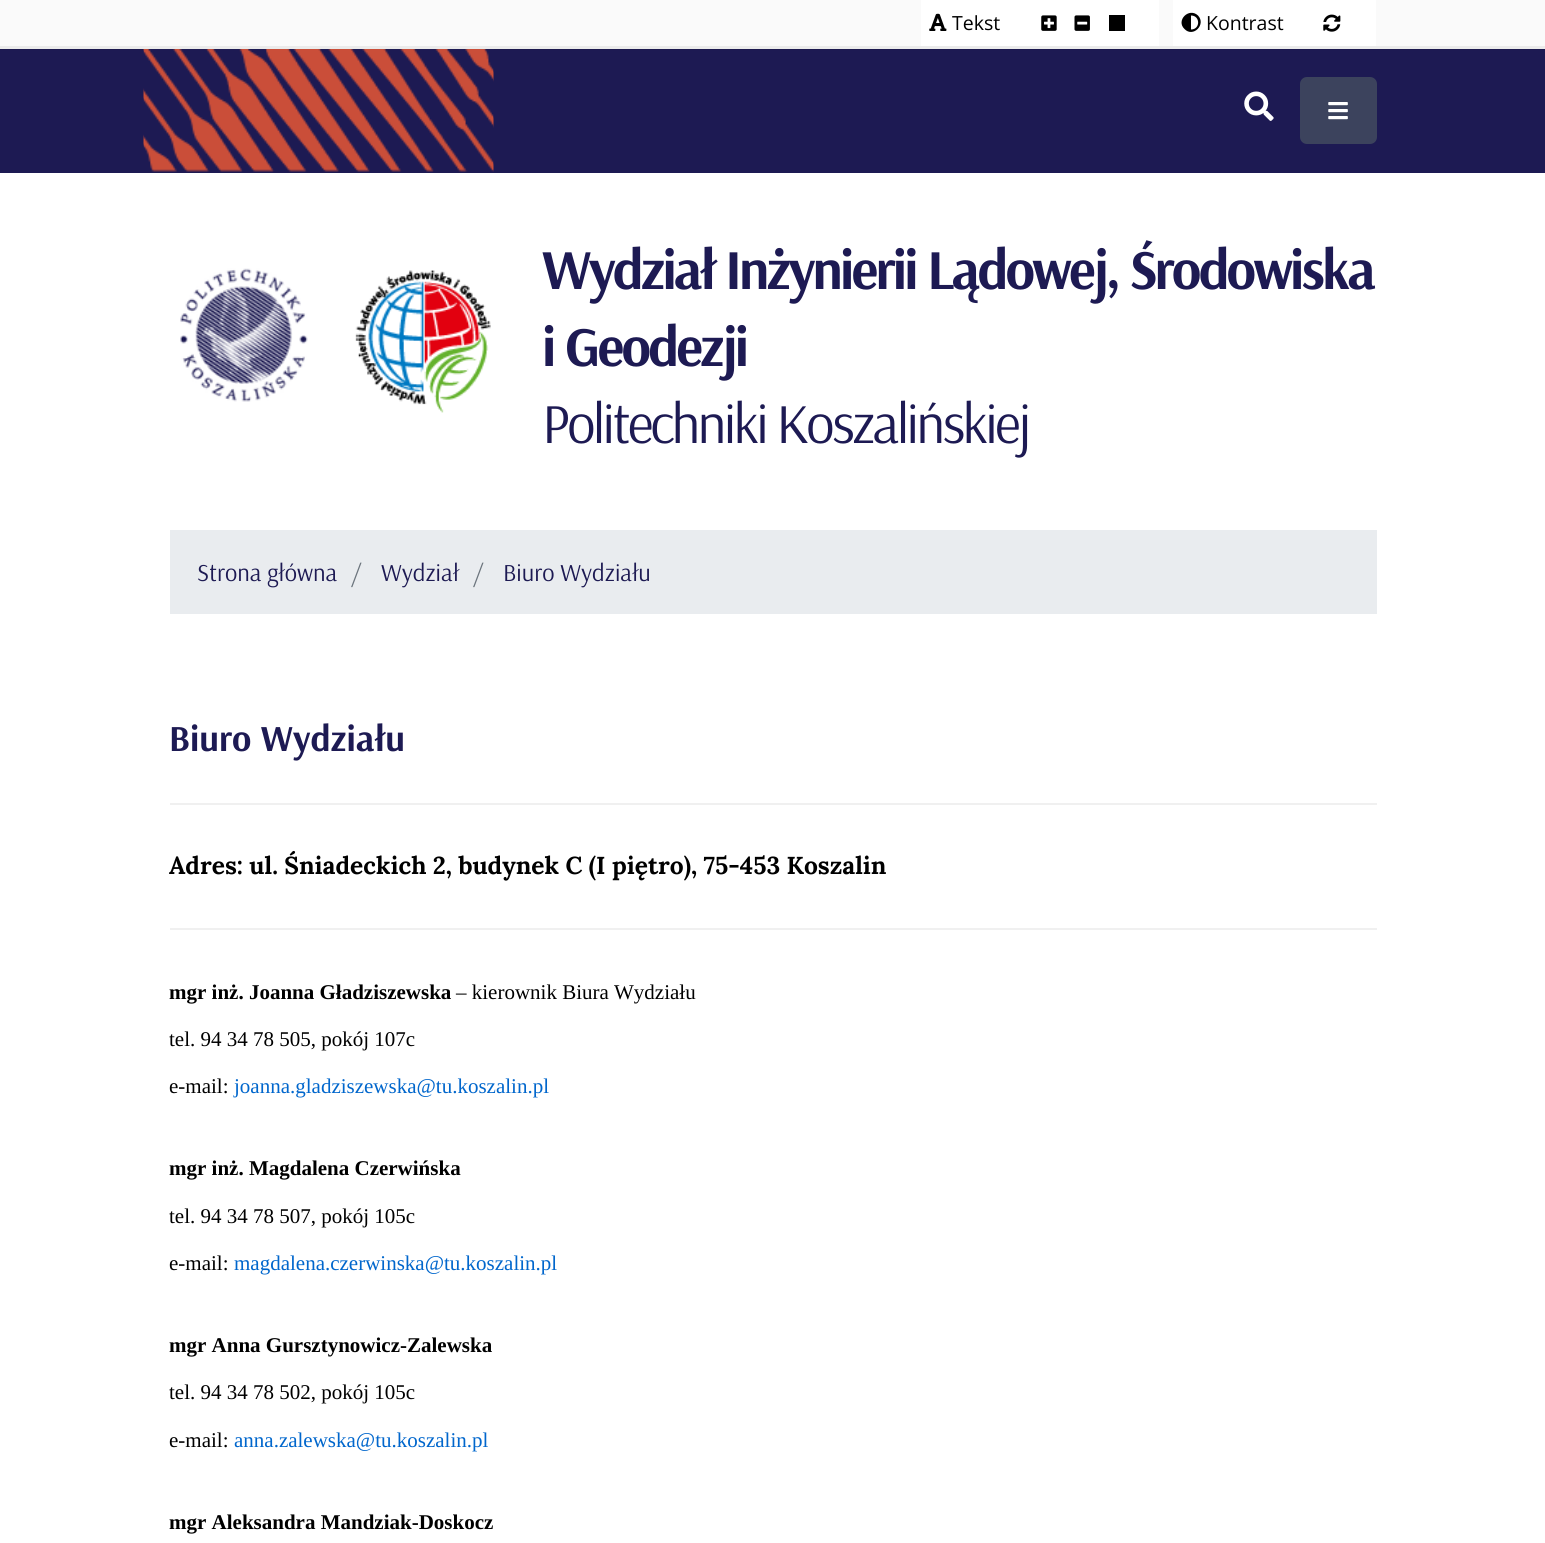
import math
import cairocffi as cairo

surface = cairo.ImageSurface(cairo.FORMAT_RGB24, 1545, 1543)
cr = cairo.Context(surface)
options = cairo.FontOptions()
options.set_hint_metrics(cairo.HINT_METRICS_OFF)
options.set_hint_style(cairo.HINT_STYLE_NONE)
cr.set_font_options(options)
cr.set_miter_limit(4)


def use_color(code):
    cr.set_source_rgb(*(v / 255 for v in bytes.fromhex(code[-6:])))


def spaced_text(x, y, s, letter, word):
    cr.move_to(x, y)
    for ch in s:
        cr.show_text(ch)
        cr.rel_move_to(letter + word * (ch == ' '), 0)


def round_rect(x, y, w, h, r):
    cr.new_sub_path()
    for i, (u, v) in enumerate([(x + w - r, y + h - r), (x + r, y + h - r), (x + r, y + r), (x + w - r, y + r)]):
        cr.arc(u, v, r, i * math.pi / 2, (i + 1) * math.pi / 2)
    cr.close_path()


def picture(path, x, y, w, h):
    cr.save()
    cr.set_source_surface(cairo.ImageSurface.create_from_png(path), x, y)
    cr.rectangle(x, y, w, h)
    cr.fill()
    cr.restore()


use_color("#ffffff")
cr.paint()
use_color("#1d1a53")
cr.rectangle(0, 50, 1545, 123)
cr.fill()
use_color("#1b184e")
cr.rectangle(0, 49, 1545, 1)
cr.fill()
use_color("#fafafa")
cr.rectangle(0, 0, 1545, 46)
cr.fill()
use_color("#ebebeb")
cr.rectangle(0, 46, 1545, 3)
cr.fill()
use_color("#ffffff")
cr.rectangle(921, 0, 238, 46)
cr.fill()
picture("img1.png", 929, 13, 18, 18)
cr.select_font_face("Open Sans")
cr.set_font_size(19.5)
use_color("#000000")
cr.move_to(952, 30)
cr.show_text("Tekst")
picture("img2.png", 1041, 15, 16, 16)
picture("img3.png", 1074, 15, 16, 16)
cr.rectangle(1109, 15, 16, 16)
cr.fill()
use_color("#ffffff")
cr.rectangle(1173, 0, 203, 46)
cr.fill()
use_color("#000000")
cr.new_path()
cr.move_to(1184.5, 29)
cr.curve_to(1175.5, 20.5, 1189, 7, 1198, 15.5)
cr.curve_to(1206.5, 24.5, 1193, 38, 1184.5, 29)
cr.close_path()
cr.move_to(1191, 29.5)
cr.curve_to(1200.5, 29.5, 1200.5, 15.5, 1191, 15.5)
cr.close_path()
cr.fill()
cr.move_to(1206, 30)
cr.show_text("Kontrast")
picture("img4.png", 1323, 14, 18, 18)
use_color("#1d1a53")
cr.rectangle(144, 49, 350, 1)
cr.fill()
picture("img5.png", 143, 49, 351, 123)
picture("img6.png", 1244, 91, 30, 30)
use_color("#3c435d")
round_rect(1300, 77, 77, 67, 7)
cr.fill()
picture("img7.png", 1328, 102, 20, 18)
picture("img8.png", 180, 268, 128, 134)
picture("img9.png", 355, 270, 136, 143)
cr.select_font_face("Arsenal", cairo.FONT_SLANT_NORMAL, cairo.FONT_WEIGHT_BOLD)
cr.set_font_size(56.4)
use_color("#1d1a53")
spaced_text(542, 289, "Wydział Inżynierii Lądowej, Środowiska", -2.8, 0)
spaced_text(542, 366, "i Geodezji", -2.8, 0)
cr.select_font_face("Arsenal")
spaced_text(542, 443, "Politechniki Koszalińskiej", -2.8, 0)
use_color("#e9ecef")
cr.rectangle(170, 530, 1207, 84)
cr.fill()
cr.set_font_size(24.5)
use_color("#1d1a53")
cr.move_to(197, 581)
cr.show_text("Strona główna")
use_color("#6c757d")
cr.move_to(351, 581)
cr.show_text("/")
use_color("#1d1a53")
cr.move_to(381, 581)
cr.show_text("Wydział")
use_color("#6c757d")
cr.move_to(473, 581)
cr.show_text("/")
use_color("#1d1a53")
cr.move_to(503, 581)
cr.show_text("Biuro Wydziału")
cr.select_font_face("Arsenal", cairo.FONT_SLANT_NORMAL, cairo.FONT_WEIGHT_BOLD)
cr.set_font_size(36.75)
cr.move_to(169, 751)
cr.show_text("Biuro Wydziału")
use_color("#f0f0f0")
cr.rectangle(170, 803, 1207, 2)
cr.fill()
cr.select_font_face("Lora", cairo.FONT_SLANT_NORMAL, cairo.FONT_WEIGHT_BOLD)
cr.set_font_size(24.5)
use_color("#000000")
cr.move_to(169, 874)
cr.show_text("Adres: ul. Śniadeckich 2, budynek C (I piętro), 75-453 Koszalin")
use_color("#f0f0f0")
cr.rectangle(170, 928, 1207, 2)
cr.fill()
cr.select_font_face("Liberation Serif", cairo.FONT_SLANT_NORMAL, cairo.FONT_WEIGHT_BOLD)
cr.set_font_size(21)
use_color("#000000")
cr.move_to(169, 999)
cr.show_text("mgr inż. Joanna Gładziszewska")
cr.select_font_face("Liberation Serif")
cr.move_to(456, 999)
cr.show_text("– kierownik Biura Wydziału")
cr.move_to(169, 1046)
cr.show_text("tel. 94 34 78 505, pokój 107c")
cr.move_to(169, 1093)
cr.show_text("e-mail:")
use_color("#0066cc")
cr.move_to(234, 1093)
cr.show_text("joanna.gladziszewska@tu.koszalin.pl")
cr.select_font_face("Liberation Serif", cairo.FONT_SLANT_NORMAL, cairo.FONT_WEIGHT_BOLD)
use_color("#000000")
cr.move_to(169, 1175)
cr.show_text("mgr inż. Magdalena Czerwińska")
cr.select_font_face("Liberation Serif")
cr.move_to(169, 1223)
cr.show_text("tel. 94 34 78 507, pokój 105c")
cr.move_to(169, 1270)
cr.show_text("e-mail:")
use_color("#0066cc")
cr.move_to(234, 1270)
cr.show_text("magdalena.czerwinska@tu.koszalin.pl")
cr.select_font_face("Liberation Serif", cairo.FONT_SLANT_NORMAL, cairo.FONT_WEIGHT_BOLD)
use_color("#000000")
cr.move_to(169, 1352)
cr.show_text("mgr Anna Gursztynowicz-Zalewska")
cr.select_font_face("Liberation Serif")
cr.move_to(169, 1399)
cr.show_text("tel. 94 34 78 502, pokój 105c")
cr.move_to(169, 1447)
cr.show_text("e-mail:")
use_color("#0066cc")
cr.move_to(234, 1447)
cr.show_text("anna.zalewska@tu.koszalin.pl")
cr.select_font_face("Liberation Serif", cairo.FONT_SLANT_NORMAL, cairo.FONT_WEIGHT_BOLD)
use_color("#000000")
cr.move_to(169, 1529)
cr.show_text("mgr Aleksandra Mandziak-Doskocz")
surface.write_to_png("result.png")
